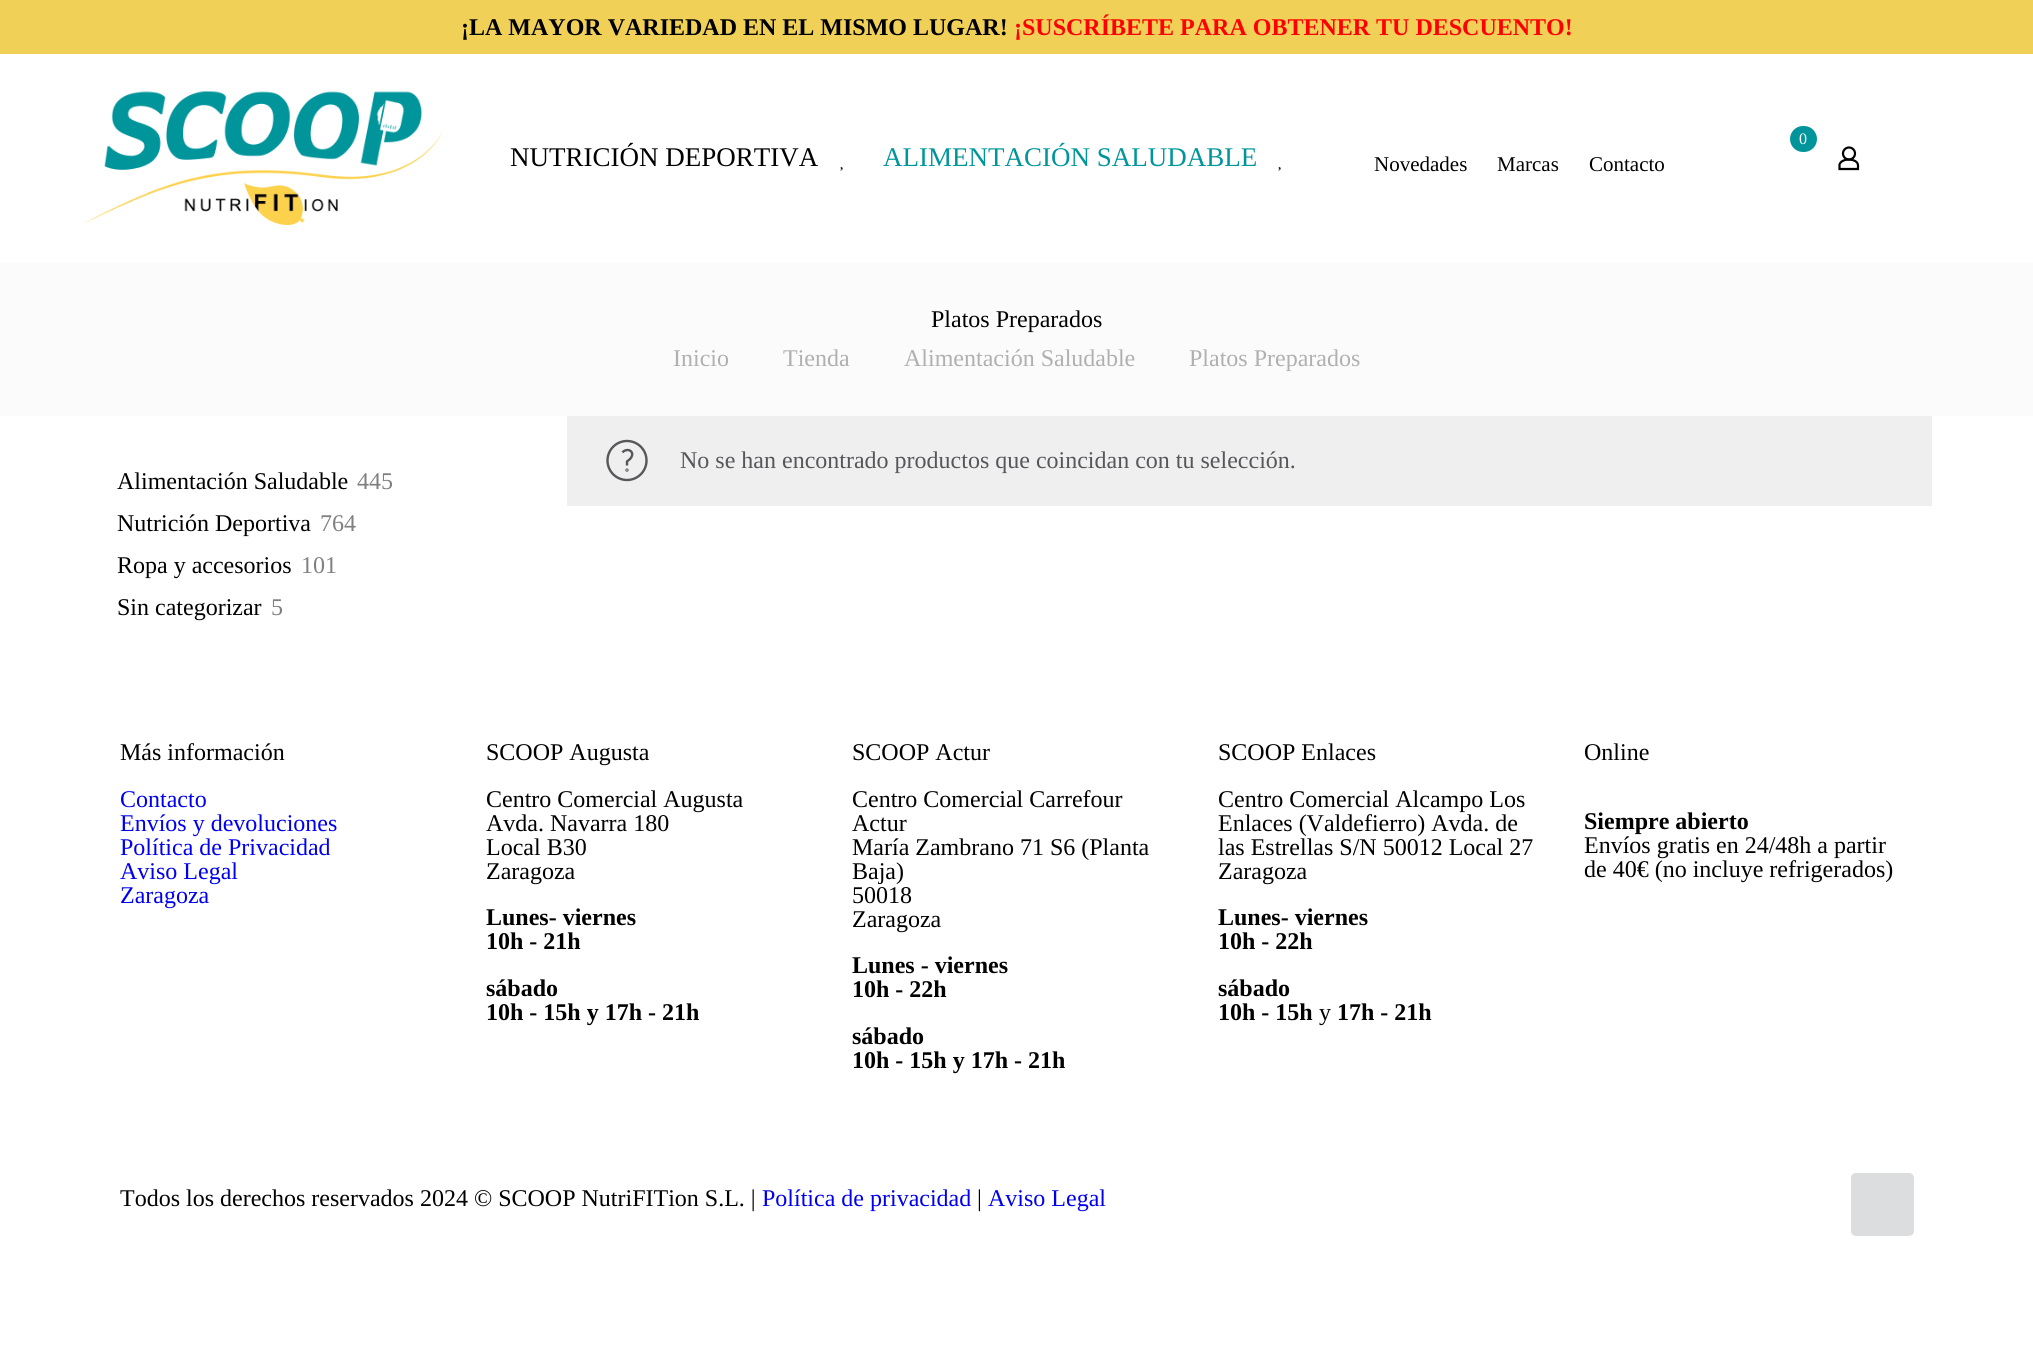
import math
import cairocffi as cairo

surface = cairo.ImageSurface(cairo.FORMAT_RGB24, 2033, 1372)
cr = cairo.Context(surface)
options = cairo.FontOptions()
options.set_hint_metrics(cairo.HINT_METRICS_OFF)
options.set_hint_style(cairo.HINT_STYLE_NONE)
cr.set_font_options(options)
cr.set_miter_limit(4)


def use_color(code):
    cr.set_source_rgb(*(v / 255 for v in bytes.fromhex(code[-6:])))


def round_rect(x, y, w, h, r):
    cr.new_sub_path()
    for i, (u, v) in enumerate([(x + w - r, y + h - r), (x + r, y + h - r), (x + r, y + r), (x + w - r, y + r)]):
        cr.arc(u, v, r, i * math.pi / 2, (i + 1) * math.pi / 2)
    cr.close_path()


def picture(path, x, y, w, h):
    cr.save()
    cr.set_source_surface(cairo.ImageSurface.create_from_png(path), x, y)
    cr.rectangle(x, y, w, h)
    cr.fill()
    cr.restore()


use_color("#ffffff")
cr.paint()
use_color("#f0d057")
cr.rectangle(0, 0, 2033, 54)
cr.fill()
cr.select_font_face("Liberation Serif", cairo.FONT_SLANT_NORMAL, cairo.FONT_WEIGHT_BOLD)
cr.set_font_size(24)
use_color("#000000")
cr.move_to(461, 35)
cr.show_text("¡LA MAYOR VARIEDAD EN EL MISMO LUGAR!")
use_color("#ff0000")
cr.move_to(1014, 35)
cr.show_text("¡SUSCRÍBETE PARA OBTENER TU DESCUENTO!")
picture("img1.png", 82, 91, 361, 134)
cr.select_font_face("Liberation Serif")
cr.set_font_size(27)
use_color("#000000")
cr.move_to(510, 166)
cr.show_text("NUTRICIÓN DEPORTIVA")
picture("img2.png", 840, 167, 3, 4)
use_color("#00959b")
cr.move_to(883, 166)
cr.show_text("ALIMENTACIÓN SALUDABLE")
picture("img2.png", 1278, 167, 3, 4)
round_rect(1790, 126, 27, 26, 13)
cr.fill()
cr.set_font_size(16)
use_color("#ffffff")
cr.move_to(1799, 144)
cr.show_text("0")
cr.set_font_size(21)
use_color("#000000")
cr.move_to(1374, 171)
cr.show_text("Novedades")
cr.move_to(1497, 171)
cr.show_text("Marcas")
cr.move_to(1589, 171)
cr.show_text("Contacto")
cr.new_path()
cr.arc(1849, 153.5, 6, 0, 2 * math.pi)
cr.set_line_width(2.2)
cr.stroke()
cr.new_path()
cr.move_to(1858, 165.5)
cr.line_to(1858, 169)
cr.line_to(1839.5, 169)
cr.line_to(1839.5, 164.5)
cr.curve_to(1841.5, 157.5, 1858, 158, 1858, 165.5)
cr.close_path()
cr.stroke()
use_color("#fbfbfb")
cr.rectangle(0, 263, 2033, 153)
cr.fill()
cr.set_font_size(24)
use_color("#000000")
cr.move_to(931, 327)
cr.show_text("Platos Preparados")
use_color("#b0b0b0")
cr.move_to(673, 366)
cr.show_text("Inicio")
cr.move_to(783, 366)
cr.show_text("Tienda")
cr.move_to(904, 366)
cr.show_text("Alimentación Saludable")
cr.move_to(1189, 366)
cr.show_text("Platos Preparados")
use_color("#efefef")
cr.rectangle(567, 416, 1365, 90)
cr.fill()
cr.arc(627, 460.5, 19.5, 0, 2 * math.pi)
use_color("#57575b")
cr.set_line_width(2.4)
cr.stroke()
cr.new_path()
cr.move_to(622.5, 452.5)
cr.curve_to(623.5, 451, 625.5, 450, 627.5, 450)
cr.curve_to(629, 450, 630.5, 450.5, 631.5, 452)
cr.curve_to(633, 454, 632, 457, 630, 459)
cr.line_to(627, 461.5)
cr.line_to(627, 465.5)
cr.stroke()
cr.arc(627, 470.1, 0.5, 0, 2 * math.pi)
cr.stroke()
cr.move_to(680, 468)
cr.show_text("No se han encontrado productos que coincidan con tu selección.")
use_color("#000000")
cr.move_to(117, 489)
cr.show_text("Alimentación Saludable")
use_color("#808080")
cr.move_to(357, 489)
cr.show_text("445")
use_color("#000000")
cr.move_to(117, 531)
cr.show_text("Nutrición Deportiva")
use_color("#808080")
cr.move_to(320, 531)
cr.show_text("764")
use_color("#000000")
cr.move_to(117, 573)
cr.show_text("Ropa y accesorios")
use_color("#808080")
cr.move_to(301, 573)
cr.show_text("101")
use_color("#000000")
cr.move_to(117, 615)
cr.show_text("Sin categorizar")
use_color("#808080")
cr.move_to(271, 615)
cr.show_text("5")
use_color("#000000")
cr.move_to(120, 760)
cr.show_text("Más información")
use_color("#0000ee")
cr.move_to(120, 807)
cr.show_text("Contacto")
cr.move_to(120, 831)
cr.show_text("Envíos y devoluciones")
cr.move_to(120, 855)
cr.show_text("Política de Privacidad")
cr.move_to(120, 879)
cr.show_text("Aviso Legal")
cr.move_to(120, 903)
cr.show_text("Zaragoza")
use_color("#000000")
cr.move_to(486, 760)
cr.show_text("SCOOP Augusta")
cr.move_to(486, 807)
cr.show_text("Centro Comercial Augusta")
cr.move_to(486, 831)
cr.show_text("Avda. Navarra 180")
cr.move_to(486, 855)
cr.show_text("Local B30")
cr.move_to(486, 879)
cr.show_text("Zaragoza")
cr.select_font_face("Liberation Serif", cairo.FONT_SLANT_NORMAL, cairo.FONT_WEIGHT_BOLD)
cr.move_to(486, 925)
cr.show_text("Lunes- viernes")
cr.move_to(486, 949)
cr.show_text("10h - 21h")
cr.move_to(486, 996)
cr.show_text("sábado")
cr.move_to(486, 1020)
cr.show_text("10h - 15h y 17h - 21h")
cr.select_font_face("Liberation Serif")
cr.move_to(852, 760)
cr.show_text("SCOOP Actur")
cr.move_to(852, 807)
cr.show_text("Centro Comercial Carrefour")
cr.move_to(852, 831)
cr.show_text("Actur")
cr.move_to(852, 855)
cr.show_text("María Zambrano 71 S6 (Planta")
cr.move_to(852, 879)
cr.show_text("Baja)")
cr.move_to(852, 903)
cr.show_text("50018")
cr.move_to(852, 927)
cr.show_text("Zaragoza")
cr.select_font_face("Liberation Serif", cairo.FONT_SLANT_NORMAL, cairo.FONT_WEIGHT_BOLD)
cr.move_to(852, 973)
cr.show_text("Lunes - viernes")
cr.move_to(852, 997)
cr.show_text("10h - 22h")
cr.move_to(852, 1044)
cr.show_text("sábado")
cr.move_to(852, 1068)
cr.show_text("10h - 15h y 17h - 21h")
cr.select_font_face("Liberation Serif")
cr.move_to(1218, 760)
cr.show_text("SCOOP Enlaces")
cr.move_to(1218, 807)
cr.show_text("Centro Comercial Alcampo Los")
cr.move_to(1218, 831)
cr.show_text("Enlaces (Valdefierro) Avda. de")
cr.move_to(1218, 855)
cr.show_text("las Estrellas S/N 50012 Local 27")
cr.move_to(1218, 879)
cr.show_text("Zaragoza")
cr.select_font_face("Liberation Serif", cairo.FONT_SLANT_NORMAL, cairo.FONT_WEIGHT_BOLD)
cr.move_to(1218, 925)
cr.show_text("Lunes- viernes")
cr.move_to(1218, 949)
cr.show_text("10h - 22h")
cr.move_to(1218, 996)
cr.show_text("sábado")
cr.move_to(1218, 1020)
cr.show_text("10h - 15h")
cr.select_font_face("Liberation Serif")
cr.move_to(1319, 1020)
cr.show_text("y")
cr.select_font_face("Liberation Serif", cairo.FONT_SLANT_NORMAL, cairo.FONT_WEIGHT_BOLD)
cr.move_to(1337, 1020)
cr.show_text("17h - 21h")
cr.select_font_face("Liberation Serif")
cr.move_to(1584, 760)
cr.show_text("Online")
cr.select_font_face("Liberation Serif", cairo.FONT_SLANT_NORMAL, cairo.FONT_WEIGHT_BOLD)
cr.move_to(1584, 829)
cr.show_text("Siempre abierto")
cr.select_font_face("Liberation Serif")
cr.move_to(1584, 853)
cr.show_text("Envíos gratis en 24/48h a partir")
cr.move_to(1584, 877)
cr.show_text("de 40€ (no incluye refrigerados)")
cr.move_to(120, 1206)
cr.show_text("Todos los derechos reservados 2024 © SCOOP NutriFITion S.L. |")
use_color("#0000ee")
cr.move_to(762, 1206)
cr.show_text("Política de privacidad")
use_color("#000000")
cr.move_to(977, 1206)
cr.show_text("|")
use_color("#0000ee")
cr.move_to(988, 1206)
cr.show_text("Aviso Legal")
use_color("#dbdddf")
round_rect(1851, 1173, 63, 63, 5)
cr.fill()
surface.write_to_png("result.png")
